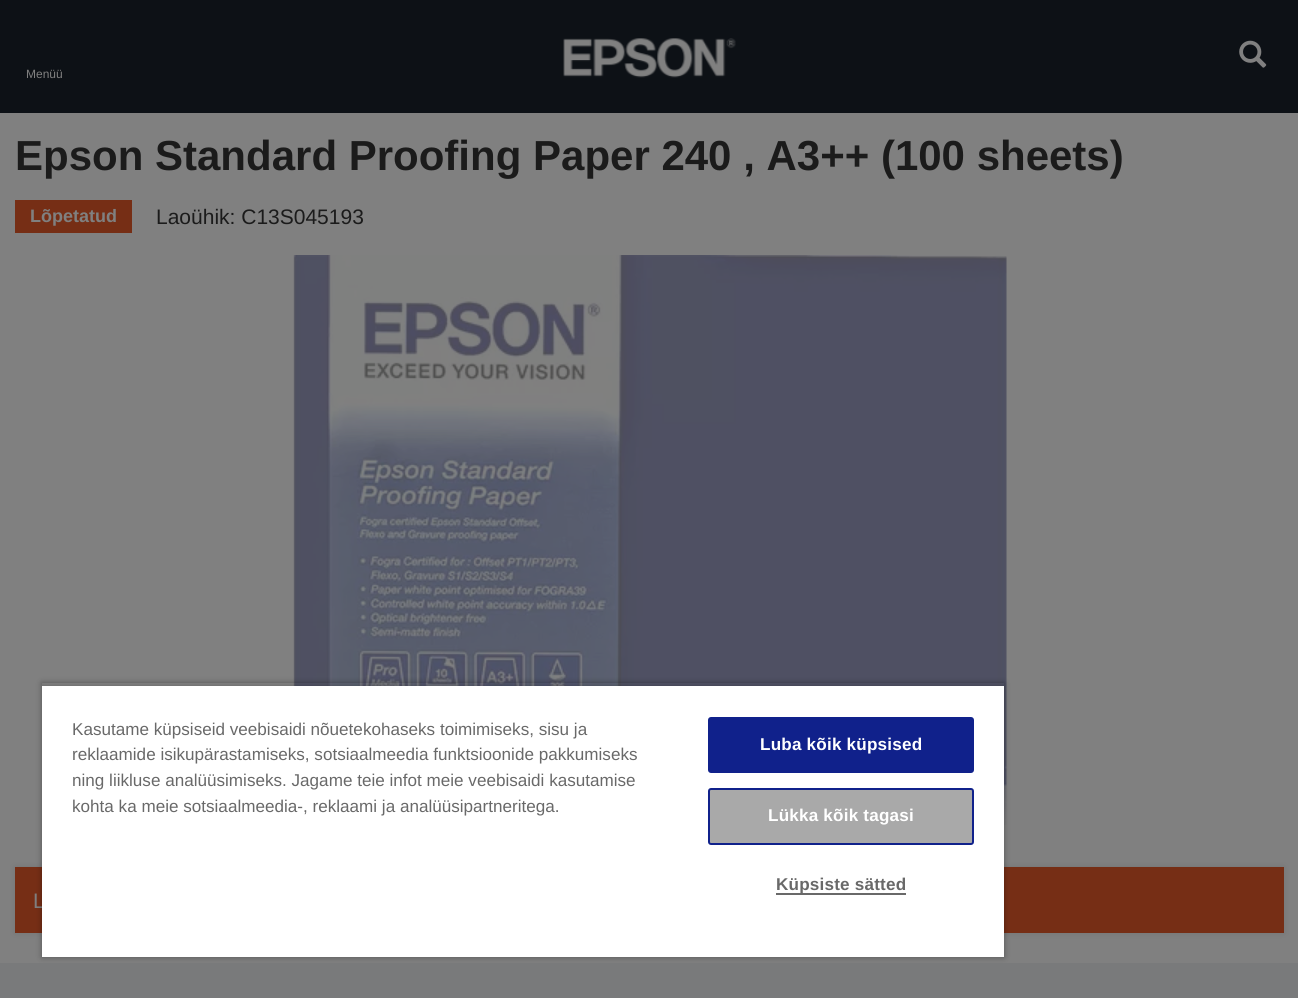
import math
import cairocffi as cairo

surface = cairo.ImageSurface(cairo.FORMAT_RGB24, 1298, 998)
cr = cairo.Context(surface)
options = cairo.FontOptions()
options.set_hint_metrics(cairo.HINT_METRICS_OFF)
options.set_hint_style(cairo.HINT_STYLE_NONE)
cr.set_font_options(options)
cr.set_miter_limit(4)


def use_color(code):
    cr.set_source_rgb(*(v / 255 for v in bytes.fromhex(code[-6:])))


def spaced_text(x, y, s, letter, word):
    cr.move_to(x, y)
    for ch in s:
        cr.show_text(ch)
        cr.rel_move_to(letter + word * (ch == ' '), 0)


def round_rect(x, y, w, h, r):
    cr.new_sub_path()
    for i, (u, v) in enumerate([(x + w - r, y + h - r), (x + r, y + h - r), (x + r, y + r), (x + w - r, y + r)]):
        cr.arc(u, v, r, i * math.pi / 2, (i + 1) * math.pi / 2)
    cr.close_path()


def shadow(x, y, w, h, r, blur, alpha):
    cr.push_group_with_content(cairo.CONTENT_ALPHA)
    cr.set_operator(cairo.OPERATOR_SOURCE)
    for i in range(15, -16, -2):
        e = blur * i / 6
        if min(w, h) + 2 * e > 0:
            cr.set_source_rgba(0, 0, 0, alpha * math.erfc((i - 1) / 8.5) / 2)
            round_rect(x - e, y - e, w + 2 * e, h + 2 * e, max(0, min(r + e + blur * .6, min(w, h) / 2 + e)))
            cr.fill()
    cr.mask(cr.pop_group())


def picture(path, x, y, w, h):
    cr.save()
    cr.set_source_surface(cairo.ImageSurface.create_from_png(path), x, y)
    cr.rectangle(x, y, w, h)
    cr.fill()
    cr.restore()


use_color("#808080")
cr.paint()
use_color("#0d1116")
cr.rectangle(0, 0, 1298, 113)
cr.fill()
picture("img1.png", 563, 38, 173, 40)
picture("img2.png", 1239, 40, 28, 28)
cr.select_font_face("Liberation Sans")
cr.set_font_size(12)
use_color("#808080")
cr.move_to(26, 78)
cr.show_text("Menüü")
cr.select_font_face("Liberation Sans", cairo.FONT_SLANT_NORMAL, cairo.FONT_WEIGHT_BOLD)
cr.set_font_size(42)
use_color("#1b1b1b")
cr.move_to(15, 170)
cr.show_text("Epson Standard Proofing Paper 240 , A3++ (100 sheets)")
use_color("#762e15")
cr.rectangle(15, 200, 117, 33)
cr.fill()
cr.set_font_size(18)
use_color("#808080")
cr.move_to(30, 222)
cr.show_text("Lõpetatud")
cr.select_font_face("Liberation Sans")
cr.set_font_size(21)
use_color("#1b1b1b")
cr.move_to(156, 224)
cr.show_text("Laoühik: C13S045193")
picture("img3.png", 293, 255, 714, 570)
use_color("#000000")
shadow(15, 867, 1269, 66, 0, 3, 0.1)
use_color("#762e15")
cr.rectangle(15, 867, 1269, 66)
cr.fill()
use_color("#808080")
cr.move_to(33, 908)
cr.show_text("L")
use_color("#797a7b")
cr.rectangle(0, 963, 1298, 35)
cr.fill()
cr.save()
cr.set_fill_rule(cairo.FILL_RULE_EVEN_ODD)
cr.new_path()
cr.move_to(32, 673)
cr.line_to(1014, 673)
cr.line_to(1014, 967)
cr.line_to(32, 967)
cr.close_path()
cr.move_to(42, 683)
cr.line_to(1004, 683)
cr.line_to(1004, 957)
cr.line_to(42, 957)
cr.close_path()
cr.clip()
use_color("#000000")
shadow(42, 683, 962, 274, 0, 3, 0.35)
cr.restore()
cr.save()
cr.rectangle(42, 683, 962, 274)
cr.clip()
use_color("#000000")
shadow(42, 686, 962, 271, 0, 3, 0.2)
cr.restore()
use_color("#ffffff")
cr.rectangle(42, 686, 962, 271)
cr.fill()
cr.set_font_size(17.1)
use_color("#696969")
cr.move_to(72, 735)
cr.show_text("Kasutame küpsiseid veebisaidi nõuetekohaseks toimimiseks, sisu ja")
cr.move_to(72, 760)
cr.show_text("reklaamide isikupärastamiseks, sotsiaalmeedia funktsioonide pakkumiseks")
cr.move_to(72, 786)
cr.show_text("ning liikluse analüüsimiseks. Jagame teie infot meie veebisaidi kasutamise")
cr.move_to(72, 812)
cr.show_text("kohta ka meie sotsiaalmeedia-, reklaami ja analüüsipartneritega.")
use_color("#10218b")
round_rect(709, 718, 264, 54, 2)
cr.fill_preserve()
cr.stroke()
cr.select_font_face("Liberation Sans", cairo.FONT_SLANT_NORMAL, cairo.FONT_WEIGHT_BOLD)
use_color("#ffffff")
spaced_text(760, 750, "Luba kõik küpsised", 0.2, 0)
use_color("#a9a9a9")
round_rect(709, 789, 264, 55, 2)
cr.fill_preserve()
use_color("#10218b")
cr.stroke()
use_color("#ffffff")
spaced_text(768, 821, "Lükka kõik tagasi", 0.2, 0)
use_color("#696969")
cr.rectangle(776, 893, 130, 2)
cr.fill()
spaced_text(776, 890, "Küpsiste sätted", 0.2, 0)
surface.write_to_png("result.png")
